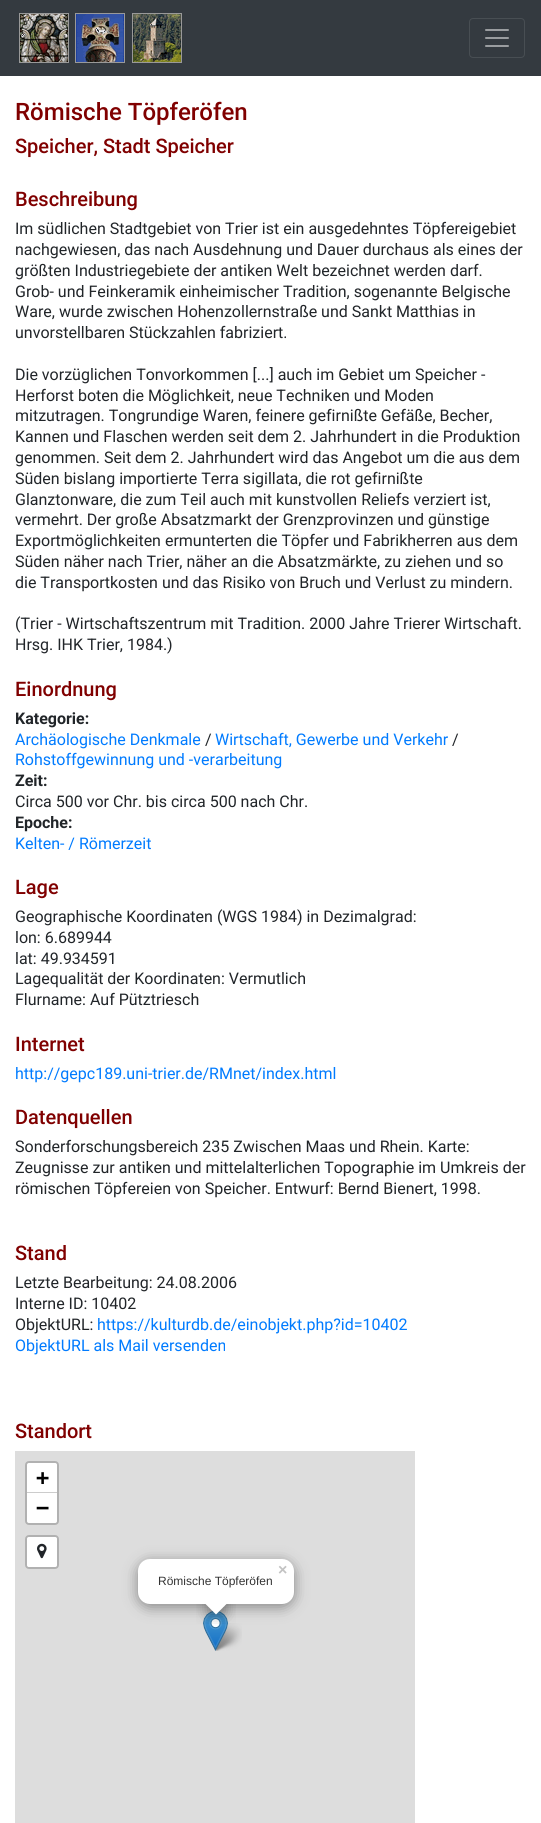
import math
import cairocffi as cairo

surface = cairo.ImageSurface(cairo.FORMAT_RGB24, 541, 1823)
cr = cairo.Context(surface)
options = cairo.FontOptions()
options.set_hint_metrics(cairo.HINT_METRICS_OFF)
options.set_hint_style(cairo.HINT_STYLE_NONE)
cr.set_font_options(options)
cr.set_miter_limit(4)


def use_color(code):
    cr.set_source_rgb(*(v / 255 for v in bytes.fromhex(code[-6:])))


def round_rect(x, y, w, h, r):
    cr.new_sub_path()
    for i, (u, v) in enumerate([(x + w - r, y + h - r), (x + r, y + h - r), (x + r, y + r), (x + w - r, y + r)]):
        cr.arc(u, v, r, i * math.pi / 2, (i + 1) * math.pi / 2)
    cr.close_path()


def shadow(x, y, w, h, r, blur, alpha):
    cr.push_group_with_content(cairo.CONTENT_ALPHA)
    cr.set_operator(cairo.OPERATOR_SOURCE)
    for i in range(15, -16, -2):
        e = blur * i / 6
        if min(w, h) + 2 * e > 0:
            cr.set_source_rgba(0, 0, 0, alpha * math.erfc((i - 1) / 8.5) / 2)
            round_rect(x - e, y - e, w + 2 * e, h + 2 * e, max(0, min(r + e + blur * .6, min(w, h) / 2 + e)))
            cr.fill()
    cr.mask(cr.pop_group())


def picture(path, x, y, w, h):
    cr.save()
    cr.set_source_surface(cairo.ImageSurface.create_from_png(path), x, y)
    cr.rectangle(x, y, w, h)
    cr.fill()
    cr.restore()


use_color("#ffffff")
cr.paint()
use_color("#343a40")
cr.rectangle(0, 0, 541, 76)
cr.fill()
picture("img1.png", 19, 13, 163, 50)
round_rect(469.5, 18.5, 55, 39, 3.5)
use_color("#484e53")
cr.set_line_width(1)
cr.stroke()
picture("img2.png", 485, 29, 24, 18)
cr.select_font_face("Roboto Medium")
cr.set_font_size(24)
use_color("#800000")
cr.move_to(15, 120)
cr.show_text("Römische Töpferöfen")
cr.set_font_size(20)
cr.move_to(15, 153)
cr.show_text("Speicher, Stadt Speicher")
cr.move_to(15, 206)
cr.show_text("Beschreibung")
cr.select_font_face("Roboto")
cr.set_font_size(16)
use_color("#212529")
cr.move_to(15, 234)
cr.show_text("Im südlichen Stadtgebiet von Trier ist ein ausgedehntes Töpfereigebiet")
cr.move_to(15, 255)
cr.show_text("nachgewiesen, das nach Ausdehnung und Dauer durchaus als eines der")
cr.move_to(15, 276)
cr.show_text("größten Industriegebiete der antiken Welt bezeichnet werden darf.")
cr.move_to(15, 297)
cr.show_text("Grob- und Feinkeramik einheimischer Tradition, sogenannte Belgische")
cr.move_to(15, 317)
cr.show_text("Ware, wurde zwischen Hohenzollernstraße und Sankt Matthias in")
cr.move_to(15, 338)
cr.show_text("unvorstellbaren Stückzahlen fabriziert.")
cr.move_to(15, 380)
cr.show_text("Die vorzüglichen Tonvorkommen [...] auch im Gebiet um Speicher -")
cr.move_to(15, 401)
cr.show_text("Herforst boten die Möglichkeit, neue Techniken und Moden")
cr.move_to(15, 421)
cr.show_text("mitzutragen. Tongrundige Waren, feinere gefirnißte Gefäße, Becher,")
cr.move_to(15, 442)
cr.show_text("Kannen und Flaschen werden seit dem 2. Jahrhundert in die Produktion")
cr.move_to(15, 463)
cr.show_text("genommen. Seit dem 2. Jahrhundert wird das Angebot um die aus dem")
cr.move_to(15, 484)
cr.show_text("Süden bislang importierte Terra sigillata, die rot gefirnißte")
cr.move_to(15, 505)
cr.show_text("Glanztonware, die zum Teil auch mit kunstvollen Reliefs verziert ist,")
cr.move_to(15, 525)
cr.show_text("vermehrt. Der große Absatzmarkt der Grenzprovinzen und günstige")
cr.move_to(15, 546)
cr.show_text("Exportmöglichkeiten ermunterten die Töpfer und Fabrikherren aus dem")
cr.move_to(15, 567)
cr.show_text("Süden näher nach Trier, näher an die Absatzmärkte, zu ziehen und so")
cr.move_to(15, 588)
cr.show_text("die Transportkosten und das Risiko von Bruch und Verlust zu mindern.")
cr.move_to(15, 629)
cr.show_text("(Trier - Wirtschaftszentrum mit Tradition. 2000 Jahre Trierer Wirtschaft.")
cr.move_to(15, 650)
cr.show_text("Hrsg. IHK Trier, 1984.)")
cr.select_font_face("Roboto Medium")
cr.set_font_size(20)
use_color("#800000")
cr.move_to(15, 696)
cr.show_text("Einordnung")
cr.select_font_face("Roboto", cairo.FONT_SLANT_NORMAL, cairo.FONT_WEIGHT_BOLD)
cr.set_font_size(16)
use_color("#212529")
cr.move_to(15, 724)
cr.show_text("Kategorie:")
cr.select_font_face("Roboto")
use_color("#007bff")
cr.move_to(15, 745)
cr.show_text("Archäologische Denkmale")
use_color("#212529")
cr.move_to(205, 745)
cr.show_text("/")
use_color("#007bff")
cr.move_to(215, 745)
cr.show_text("Wirtschaft, Gewerbe und Verkehr")
use_color("#212529")
cr.move_to(452, 745)
cr.show_text("/")
use_color("#007bff")
cr.move_to(15, 765)
cr.show_text("Rohstoffgewinnung und -verarbeitung")
cr.select_font_face("Roboto", cairo.FONT_SLANT_NORMAL, cairo.FONT_WEIGHT_BOLD)
use_color("#212529")
cr.move_to(15, 786)
cr.show_text("Zeit:")
cr.select_font_face("Roboto")
cr.move_to(15, 807)
cr.show_text("Circa 500 vor Chr. bis circa 500 nach Chr.")
cr.select_font_face("Roboto", cairo.FONT_SLANT_NORMAL, cairo.FONT_WEIGHT_BOLD)
cr.move_to(15, 828)
cr.show_text("Epoche:")
cr.select_font_face("Roboto")
use_color("#007bff")
cr.move_to(15, 849)
cr.show_text("Kelten- / Römerzeit")
cr.select_font_face("Roboto Medium")
cr.set_font_size(20)
use_color("#800000")
cr.move_to(15, 894)
cr.show_text("Lage")
cr.select_font_face("Roboto")
cr.set_font_size(16)
use_color("#212529")
cr.move_to(15, 922)
cr.show_text("Geographische Koordinaten (WGS 1984) in Dezimalgrad:")
cr.move_to(15, 943)
cr.show_text("lon: 6.689944")
cr.move_to(15, 964)
cr.show_text("lat: 49.934591")
cr.move_to(15, 984)
cr.show_text("Lagequalität der Koordinaten: Vermutlich")
cr.move_to(15, 1005)
cr.show_text("Flurname: Auf Pütztriesch")
cr.select_font_face("Roboto Medium")
cr.set_font_size(20)
use_color("#800000")
cr.move_to(15, 1051)
cr.show_text("Internet")
cr.select_font_face("Roboto")
cr.set_font_size(16)
use_color("#007bff")
cr.move_to(15, 1079)
cr.show_text("http://gepc189.uni-trier.de/RMnet/index.html")
cr.select_font_face("Roboto Medium")
cr.set_font_size(20)
use_color("#800000")
cr.move_to(15, 1124)
cr.show_text("Datenquellen")
cr.select_font_face("Roboto")
cr.set_font_size(16)
use_color("#212529")
cr.move_to(15, 1152)
cr.show_text("Sonderforschungsbereich 235 Zwischen Maas und Rhein. Karte:")
cr.move_to(15, 1173)
cr.show_text("Zeugnisse zur antiken und mittelalterlichen Topographie im Umkreis der")
cr.move_to(15, 1194)
cr.show_text("römischen Töpfereien von Speicher. Entwurf: Bernd Bienert, 1998.")
cr.select_font_face("Roboto Medium")
cr.set_font_size(20)
use_color("#800000")
cr.move_to(15, 1260)
cr.show_text("Stand")
cr.select_font_face("Roboto")
cr.set_font_size(16)
use_color("#212529")
cr.move_to(15, 1288)
cr.show_text("Letzte Bearbeitung: 24.08.2006")
cr.move_to(15, 1309)
cr.show_text("Interne ID: 10402")
cr.move_to(15, 1330)
cr.show_text("ObjektURL:")
use_color("#007bff")
cr.move_to(97, 1330)
cr.show_text("https://kulturdb.de/einobjekt.php?id=10402")
cr.move_to(15, 1351)
cr.show_text("ObjektURL als Mail versenden")
cr.select_font_face("Roboto Medium")
cr.set_font_size(20)
use_color("#800000")
cr.move_to(15, 1438)
cr.show_text("Standort")
use_color("#dddddd")
cr.rectangle(15, 1451, 400, 372)
cr.fill()
round_rect(26, 1462, 32, 62, 3)
use_color("#b1b1b1")
cr.set_line_width(2)
cr.stroke()
use_color("#ffffff")
cr.new_path()
cr.move_to(29, 1463)
cr.line_to(55, 1463)
cr.curve_to(56, 1463, 57, 1464, 57, 1465)
cr.line_to(57, 1493)
cr.line_to(27, 1493)
cr.line_to(27, 1465)
cr.curve_to(27, 1464, 28, 1463, 29, 1463)
cr.close_path()
cr.fill()
use_color("#cccccc")
cr.rectangle(27, 1492, 30, 1)
cr.fill()
cr.select_font_face("DejaVu Sans Mono", cairo.FONT_SLANT_NORMAL, cairo.FONT_WEIGHT_BOLD)
cr.set_font_size(22)
use_color("#000000")
cr.move_to(36, 1485)
cr.show_text("+")
use_color("#ffffff")
cr.new_path()
cr.move_to(27, 1493)
cr.line_to(57, 1493)
cr.line_to(57, 1521)
cr.curve_to(57, 1522, 56, 1523, 55, 1523)
cr.line_to(29, 1523)
cr.curve_to(28, 1523, 27, 1522, 27, 1521)
cr.close_path()
cr.fill()
use_color("#000000")
cr.move_to(36, 1515)
cr.show_text("−")
round_rect(26, 1536, 32, 32, 3)
use_color("#b1b1b1")
cr.stroke()
use_color("#ffffff")
round_rect(27, 1537, 30, 30, 2)
cr.fill()
picture("img3.png", 37, 1543, 10, 16)
picture("img5.png", 213, 1623, 29, 28)
picture("img4.png", 203, 1611, 25, 40)
use_color("#000000")
shadow(138, 1562, 156, 45, 12, 7, 0.4)
use_color("#ffffff")
round_rect(138, 1559, 156, 45, 12)
cr.fill()
cr.select_font_face("Liberation Sans", cairo.FONT_SLANT_NORMAL, cairo.FONT_WEIGHT_BOLD)
cr.set_font_size(16)
use_color("#c3c3c3")
cr.move_to(278, 1575)
cr.show_text("×")
cr.save()
cr.rectangle(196, 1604, 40, 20)
cr.clip()
use_color("#000000")
shadow(208, 1597, 17, 17, 0, 7, 0.4)
cr.restore()
cr.save()
cr.rectangle(196, 1604, 40, 20)
cr.clip()
use_color("#ffffff")
cr.new_path()
cr.move_to(216, 1590.5)
cr.line_to(228, 1602.5)
cr.line_to(216, 1614.5)
cr.line_to(204, 1602.5)
cr.close_path()
cr.fill()
cr.restore()
cr.select_font_face("Liberation Sans")
cr.set_font_size(12)
use_color("#333333")
cr.move_to(158, 1585)
cr.show_text("Römische Töpferöfen")
surface.write_to_png("result.png")
